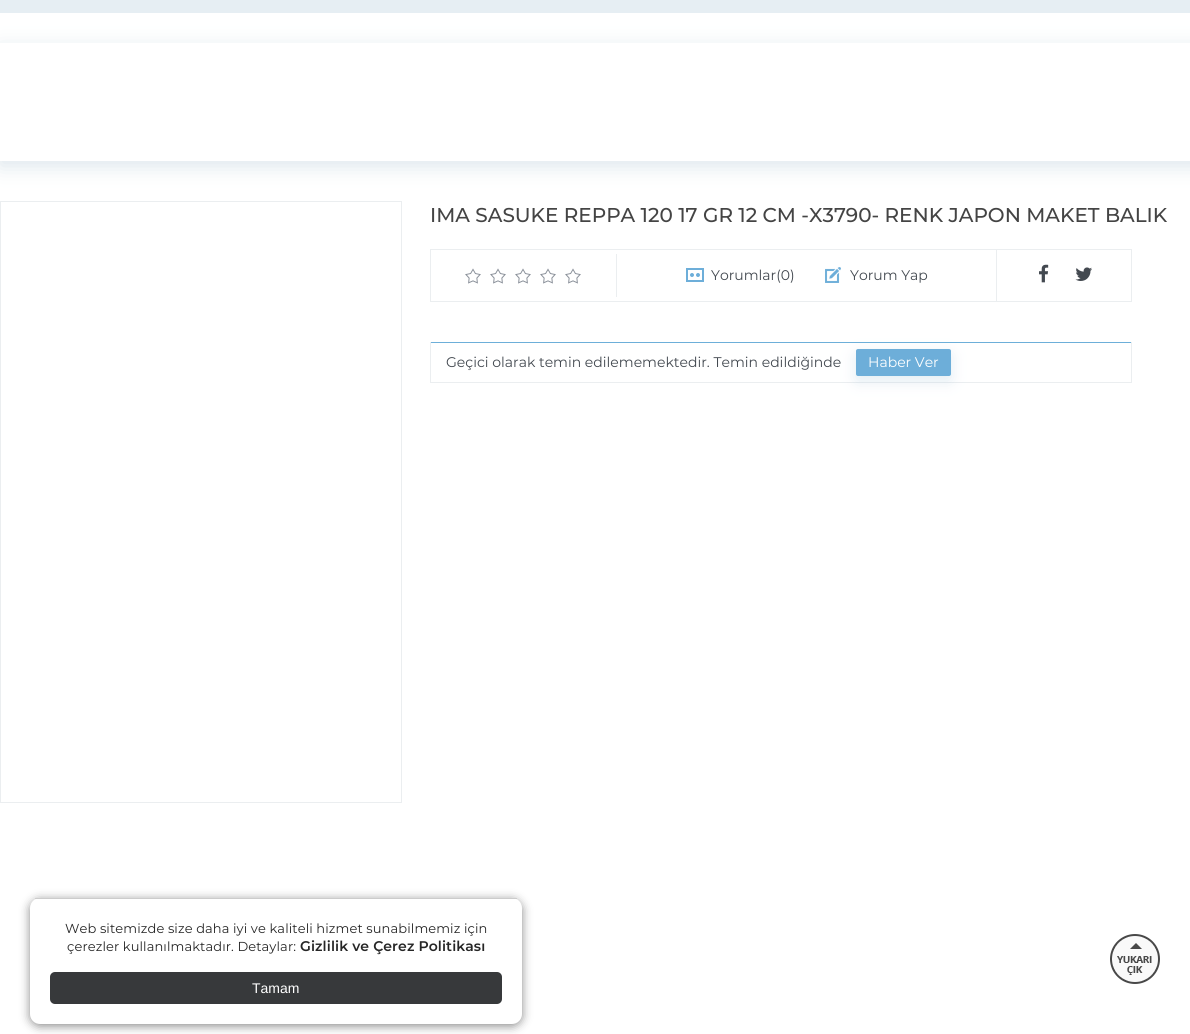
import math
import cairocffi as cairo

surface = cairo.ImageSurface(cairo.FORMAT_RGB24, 1190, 1034)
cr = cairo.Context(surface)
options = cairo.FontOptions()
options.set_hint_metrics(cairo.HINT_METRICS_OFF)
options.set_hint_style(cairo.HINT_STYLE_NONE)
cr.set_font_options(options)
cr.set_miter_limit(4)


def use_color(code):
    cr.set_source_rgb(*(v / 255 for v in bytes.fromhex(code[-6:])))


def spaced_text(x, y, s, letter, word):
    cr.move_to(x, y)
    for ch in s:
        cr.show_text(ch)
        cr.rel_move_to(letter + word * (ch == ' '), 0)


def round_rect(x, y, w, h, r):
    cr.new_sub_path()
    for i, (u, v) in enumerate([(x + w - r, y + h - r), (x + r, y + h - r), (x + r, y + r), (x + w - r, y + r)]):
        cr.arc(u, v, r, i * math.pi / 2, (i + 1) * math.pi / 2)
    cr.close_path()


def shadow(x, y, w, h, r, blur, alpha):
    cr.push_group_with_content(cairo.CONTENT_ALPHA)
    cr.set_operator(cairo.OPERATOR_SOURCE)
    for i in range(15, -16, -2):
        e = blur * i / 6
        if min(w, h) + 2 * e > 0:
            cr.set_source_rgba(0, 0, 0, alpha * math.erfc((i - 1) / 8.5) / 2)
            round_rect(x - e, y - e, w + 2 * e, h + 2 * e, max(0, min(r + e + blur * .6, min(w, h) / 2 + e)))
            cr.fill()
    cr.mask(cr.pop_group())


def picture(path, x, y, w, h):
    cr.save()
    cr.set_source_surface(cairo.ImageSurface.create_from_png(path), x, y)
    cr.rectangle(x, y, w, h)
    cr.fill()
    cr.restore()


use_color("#ffffff")
cr.paint()
use_color("#e6eef3")
cr.rectangle(0, 0, 1190, 13)
cr.fill()
cr.save()
cr.set_fill_rule(cairo.FILL_RULE_EVEN_ODD)
cr.new_path()
cr.move_to(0, 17)
cr.line_to(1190, 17)
cr.line_to(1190, 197)
cr.line_to(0, 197)
cr.close_path()
cr.move_to(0, 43)
cr.line_to(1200, 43)
cr.line_to(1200, 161)
cr.line_to(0, 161)
cr.close_path()
cr.clip()
use_color("#dce6ec")
shadow(0, 48, 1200, 118, 0, 10, 1)
cr.restore()
cr.rectangle(0.5, 201.5, 401, 601)
use_color("#ebeef0")
cr.set_line_width(1)
cr.stroke()
cr.select_font_face("Montserrat Medium")
cr.set_font_size(20)
use_color("#444444")
cr.move_to(430, 222)
cr.show_text("IMA SASUKE REPPA 120 17 GR 12 CM -X3790- RENK JAPON MAKET BALIK")
cr.rectangle(430.5, 249.5, 701, 52)
use_color("#ebeef0")
cr.stroke()
cr.rectangle(616, 254, 1, 43)
cr.fill()
picture("img1.png", 465, 268, 116, 16)
picture("img2.png", 686, 268, 18, 14)
cr.select_font_face("Montserrat")
cr.set_font_size(14)
use_color("#434950")
cr.move_to(711, 280)
cr.show_text("Yorumlar(0)")
picture("img3.png", 825, 267, 16, 16)
cr.move_to(850, 280)
cr.show_text("Yorum Yap")
use_color("#ebeef0")
cr.rectangle(996, 250, 1, 51)
cr.fill()
picture("img4.png", 1039, 264, 10, 19)
picture("img5.png", 1075, 267, 17, 14)
use_color("#6dafd9")
cr.rectangle(430, 342, 702, 1)
cr.fill()
use_color("#ebeef0")
cr.rectangle(1131, 342, 1, 41)
cr.fill()
cr.rectangle(430, 382, 702, 1)
cr.fill()
cr.rectangle(430, 342, 1, 41)
cr.fill()
use_color("#434950")
cr.move_to(446, 367)
cr.show_text("Geçici olarak temin edilememektedir. Temin edildiğinde")
use_color("#629cc1")
shadow(856, 354, 95, 27, 2, 7.5, 0.19)
use_color("#6daed9")
round_rect(856, 349, 95, 27, 2)
cr.fill()
use_color("#ffffff")
cr.move_to(868, 367)
cr.show_text("Haber Ver")
use_color("#888888")
shadow(30, 900, 492, 126, 10, 5, 1)
use_color("#ffffff")
round_rect(30, 898, 492, 126, 10)
cr.fill()
use_color("#cccccc")
cr.rectangle(35, 898, 482, 1)
cr.fill()
cr.set_font_size(13)
use_color("#262626")
spaced_text(65, 933, "Web sitemizde size daha iyi ve kaliteli hizmet sunabilmemiz için", 0.1, 0)
spaced_text(67, 951, "çerezler kullanılmaktadır. Detaylar:", 0.1, 0)
cr.select_font_face("Montserrat SemiBold")
cr.set_font_size(14)
spaced_text(300, 951, "Gizlilik ve Çerez Politikası", 0.1, 0)
use_color("#37393b")
round_rect(50, 972, 452, 32, 5)
cr.fill()
cr.select_font_face("Liberation Sans")
use_color("#ffffff")
cr.move_to(252, 993)
cr.show_text("Tamam")
picture("img6.png", 1110, 934, 50, 50)
surface.write_to_png("result.png")
